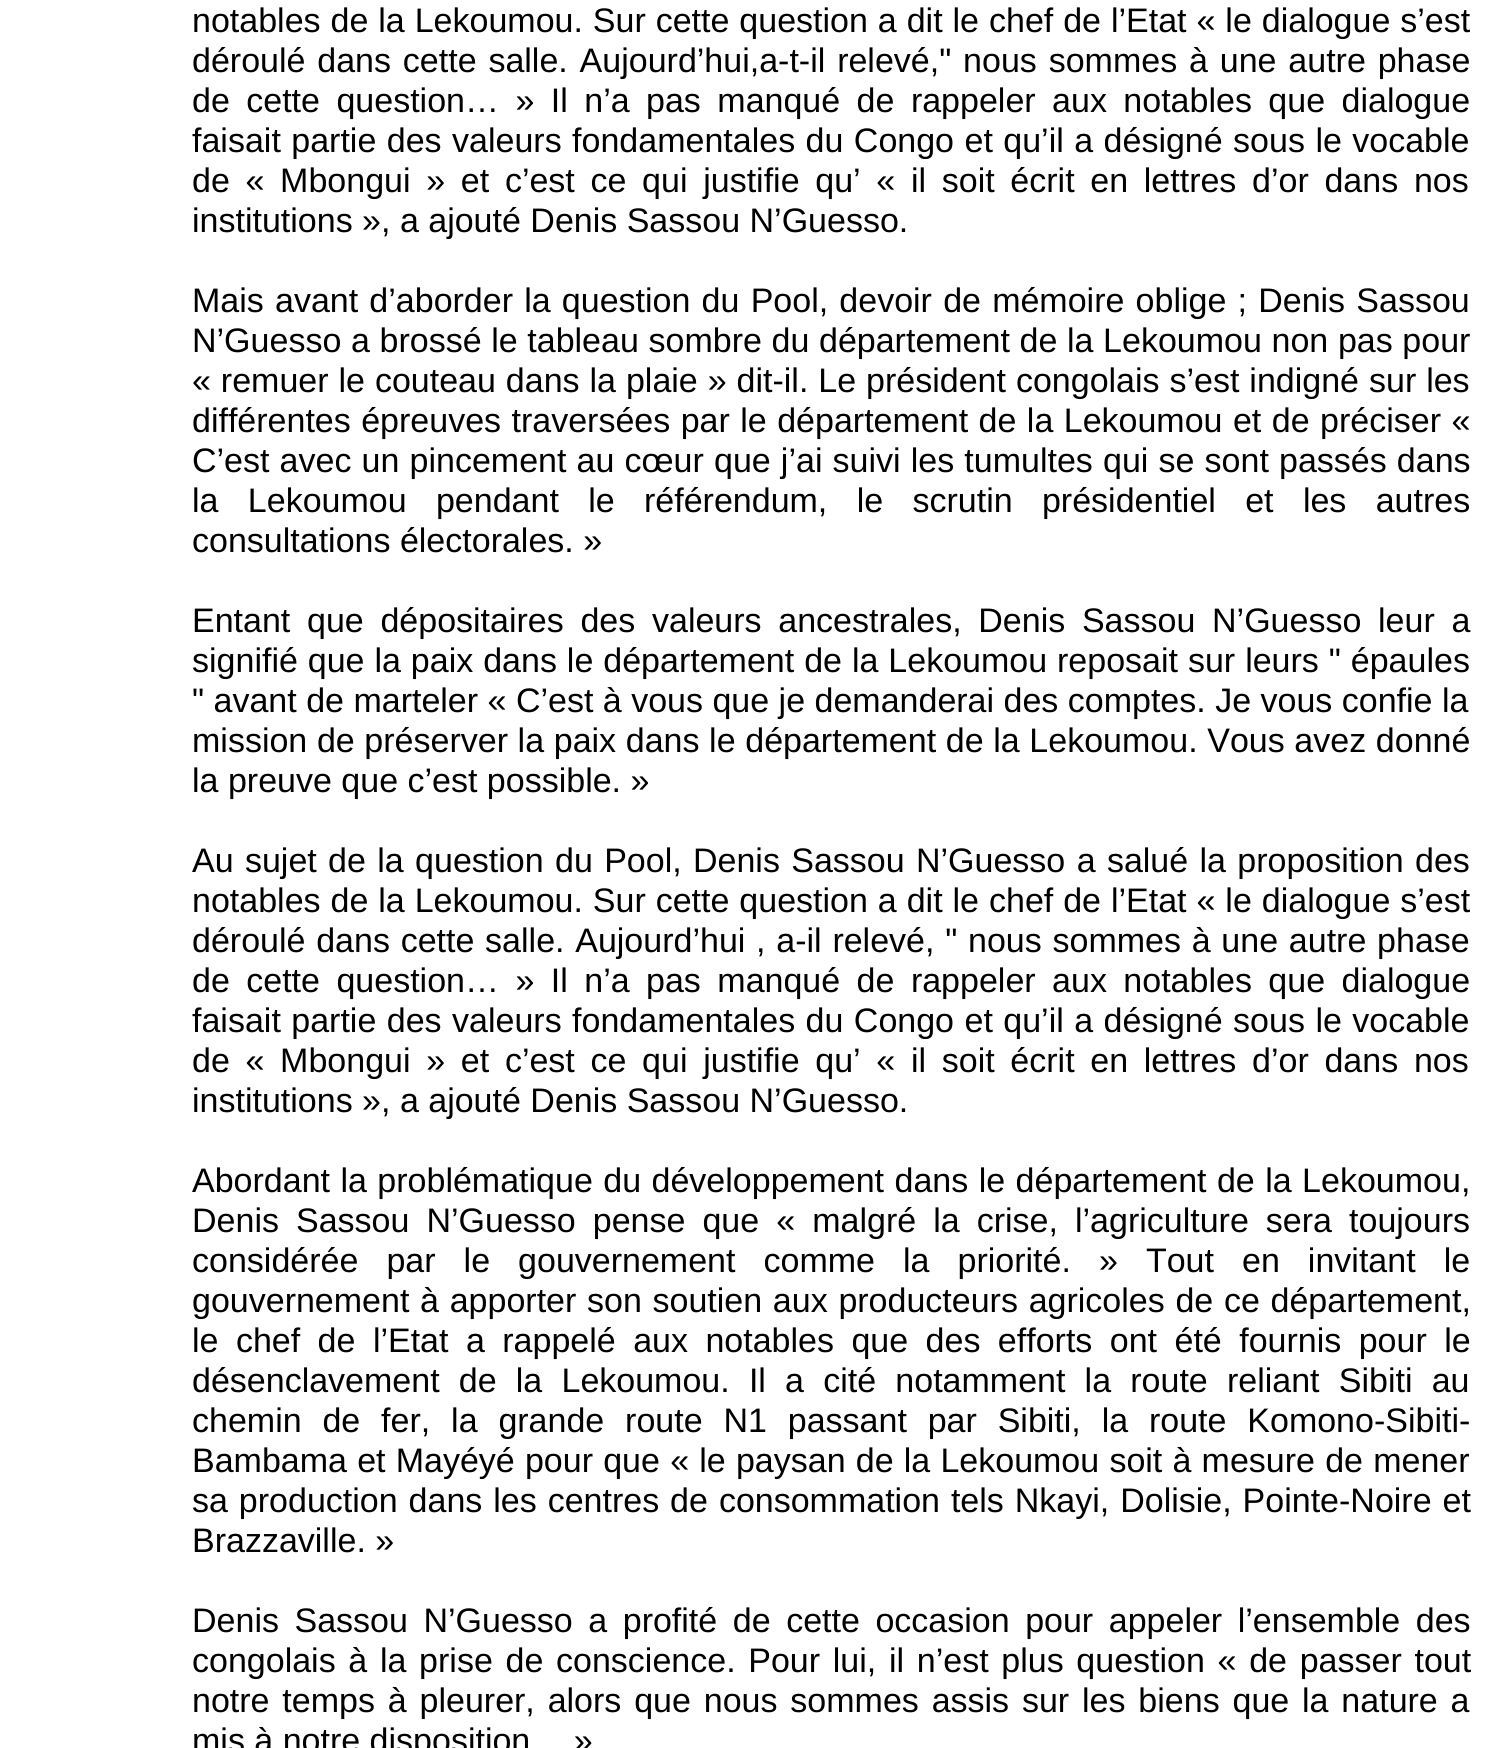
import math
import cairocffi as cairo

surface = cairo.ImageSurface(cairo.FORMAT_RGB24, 1503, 1748)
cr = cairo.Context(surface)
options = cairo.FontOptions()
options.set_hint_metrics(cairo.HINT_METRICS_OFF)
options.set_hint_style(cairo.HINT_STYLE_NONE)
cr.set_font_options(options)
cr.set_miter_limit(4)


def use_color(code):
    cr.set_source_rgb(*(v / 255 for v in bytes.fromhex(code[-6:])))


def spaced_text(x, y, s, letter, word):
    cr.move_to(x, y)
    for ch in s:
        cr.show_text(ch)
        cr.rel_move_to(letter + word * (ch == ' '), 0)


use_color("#ffffff")
cr.paint()
cr.select_font_face("Liberation Sans")
cr.set_font_size(34)
use_color("#000000")
spaced_text(192, 32, "notables de la Lekoumou. Sur cette question a dit le chef de l’Etat « le dialogue s’est", 0, 0.5)
spaced_text(192, 72, "déroulé dans cette salle. Aujourd’hui,a-t-il relevé,\" nous sommes à une autre phase", 0, 2.4)
spaced_text(192, 112, "de cette question… » Il n’a pas manqué de rappeler aux notables que dialogue", 0, 7)
spaced_text(192, 152, "faisait partie des valeurs fondamentales du Congo et qu’il a désigné sous le vocable", 0, 1)
spaced_text(192, 192, "de « Mbongui » et c’est ce qui justifie qu’ « il soit écrit en lettres d’or dans nos", 0, 6.25)
cr.move_to(192, 232)
cr.show_text("institutions », a ajouté Denis Sassou N’Guesso.")
spaced_text(192, 312, "Mais avant d’aborder la question du Pool, devoir de mémoire oblige ; Denis Sassou", 0, 1.75)
spaced_text(192, 352, "N’Guesso a brossé le tableau sombre du département de la Lekoumou non pas pour", 0, 0.2)
spaced_text(192, 392, "« remuer le couteau dans la plaie » dit-il. Le président congolais s’est indigné sur les", 0, 0.5)
spaced_text(192, 432, "différentes épreuves traversées par le département de la Lekoumou et de préciser «", 0, 1)
spaced_text(192, 472, "C’est avec un pincement au cœur que j’ai suivi les tumultes qui se sont passés dans", 0, 0.7)
spaced_text(192, 512, "la Lekoumou pendant le référendum, le scrutin présidentiel et les autres", 0, 19.9)
cr.move_to(192, 552)
cr.show_text("consultations électorales. »")
spaced_text(192, 632, "Entant que dépositaires des valeurs ancestrales, Denis Sassou N’Guesso leur a", 0, 7.25)
spaced_text(192, 672, "signifié que la paix dans le département de la Lekoumou reposait sur leurs \" épaules", 0, 0.5)
cr.move_to(192, 712)
cr.show_text("\" avant de marteler « C’est à vous que je demanderai des comptes. Je vous confie la")
spaced_text(192, 752, "mission de préserver la paix dans le département de la Lekoumou. Vous avez donné", 0, 0.2)
cr.move_to(192, 792)
cr.show_text("la preuve que c’est possible. »")
spaced_text(192, 872, "Au sujet de la question du Pool, Denis Sassou N’Guesso a salué la proposition des", 0, 1.9)
spaced_text(192, 912, "notables de la Lekoumou. Sur cette question a dit le chef de l’Etat « le dialogue s’est", 0, 0.5)
spaced_text(192, 952, "déroulé dans cette salle. Aujourd’hui , a-il relevé, \" nous sommes à une autre phase", 0, 1.3)
spaced_text(192, 992, "de cette question… » Il n’a pas manqué de rappeler aux notables que dialogue", 0, 7)
spaced_text(192, 1032, "faisait partie des valeurs fondamentales du Congo et qu’il a désigné sous le vocable", 0, 1)
spaced_text(192, 1072, "de « Mbongui » et c’est ce qui justifie qu’ « il soit écrit en lettres d’or dans nos", 0, 6.25)
cr.move_to(192, 1112)
cr.show_text("institutions », a ajouté Denis Sassou N’Guesso.")
spaced_text(192, 1192, "Abordant la problématique du développement dans le département de la Lekoumou,", 0, 1)
spaced_text(192, 1232, "Denis Sassou N’Guesso pense que « malgré la crise, l’agriculture sera toujours", 0, 7.6)
spaced_text(192, 1272, "considérée par le gouvernement comme la priorité. » Tout en invitant le", 0, 18.6)
spaced_text(192, 1312, "gouvernement à apporter son soutien aux producteurs agricoles de ce département,", 0, 1.25)
spaced_text(192, 1352, "le chef de l’Etat a rappelé aux notables que des efforts ont été fournis pour le", 0, 8)
spaced_text(192, 1392, "désenclavement de la Lekoumou. Il a cité notamment la route reliant Sibiti au", 0, 9.75)
spaced_text(192, 1432, "chemin de fer, la grande route N1 passant par Sibiti, la route Komono-Sibiti-", 0, 11.4)
spaced_text(192, 1472, "Bambama et Mayéyé pour que « le paysan de la Lekoumou soit à mesure de mener", 0, 0.75)
spaced_text(192, 1512, "sa production dans les centres de consommation tels Nkayi, Dolisie, Pointe-Noire et", 0, 1.5)
cr.move_to(192, 1552)
cr.show_text("Brazzaville. »")
spaced_text(192, 1632, "Denis Sassou N’Guesso a profité de cette occasion pour appeler l’ensemble des", 0, 6.1)
spaced_text(192, 1672, "congolais à la prise de conscience. Pour lui, il n’est plus question « de passer tout", 0, 3.25)
spaced_text(192, 1712, "notre temps à pleurer, alors que nous sommes assis sur les biens que la nature a", 0, 3.4)
cr.move_to(192, 1752)
cr.show_text("mis à notre disposition… »")
surface.write_to_png("result.png")
